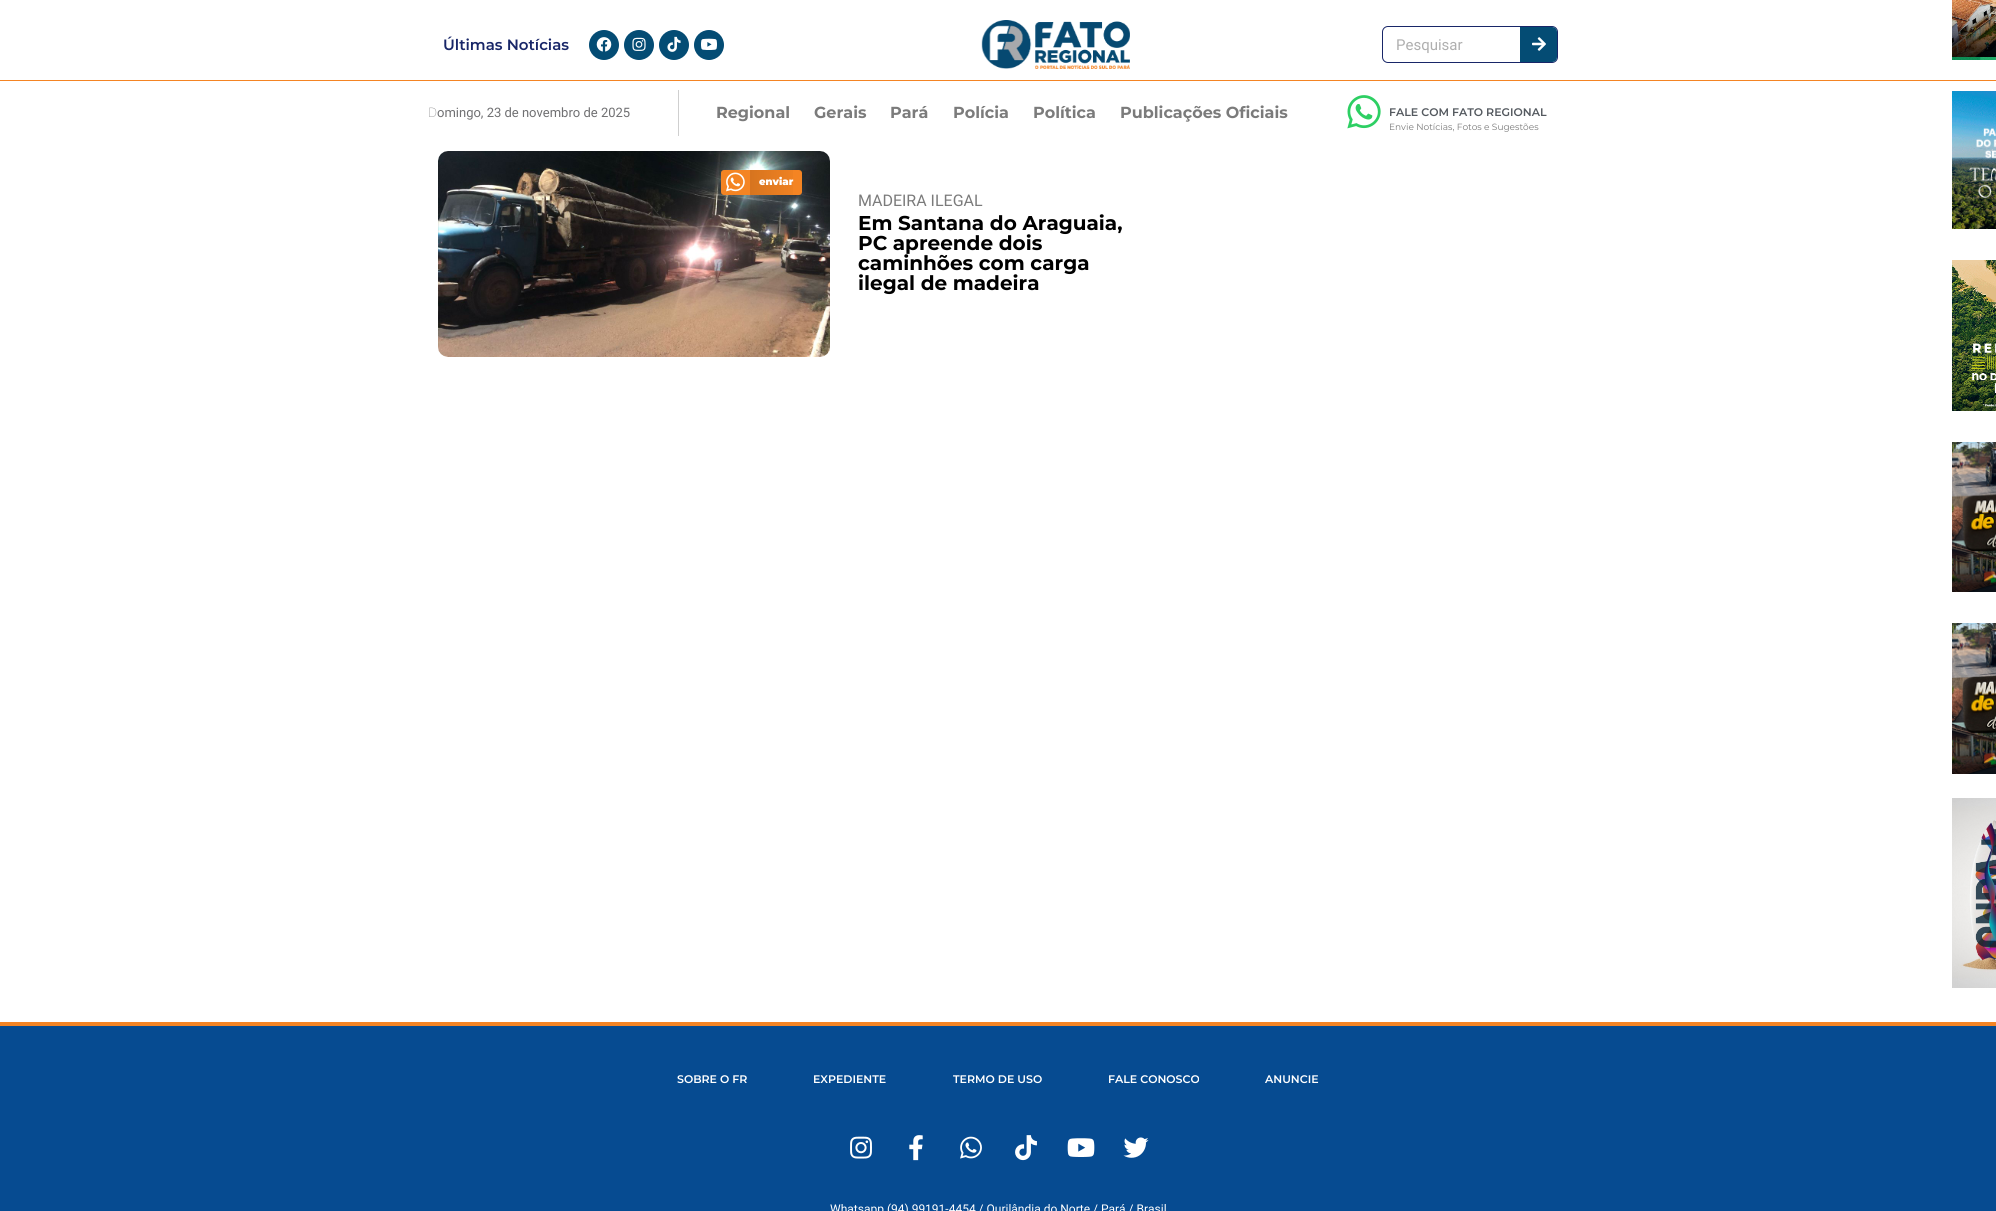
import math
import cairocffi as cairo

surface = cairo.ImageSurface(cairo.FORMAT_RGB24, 1996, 1211)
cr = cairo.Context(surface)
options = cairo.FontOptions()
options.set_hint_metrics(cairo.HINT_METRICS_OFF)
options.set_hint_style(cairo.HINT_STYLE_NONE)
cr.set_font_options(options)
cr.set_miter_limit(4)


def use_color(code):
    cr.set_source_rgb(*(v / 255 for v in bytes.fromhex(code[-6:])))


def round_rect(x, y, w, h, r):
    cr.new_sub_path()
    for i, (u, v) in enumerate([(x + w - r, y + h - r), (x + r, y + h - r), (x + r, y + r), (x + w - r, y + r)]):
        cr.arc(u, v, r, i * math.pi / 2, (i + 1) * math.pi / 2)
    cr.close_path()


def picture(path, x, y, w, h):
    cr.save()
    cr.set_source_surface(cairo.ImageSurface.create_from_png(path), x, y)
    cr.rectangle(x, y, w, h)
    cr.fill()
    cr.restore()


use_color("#ffffff")
cr.paint()
cr.select_font_face("Montserrat SemiBold")
cr.set_font_size(15)
use_color("#182668")
cr.move_to(443, 50)
cr.show_text("Últimas Notícias")
use_color("#044c74")
cr.new_path()
cr.arc(604, 45, 15, 0, 2 * math.pi)
cr.fill()
picture("img1.png", 596, 37, 16, 15)
cr.arc(639, 45, 15, 0, 2 * math.pi)
cr.fill()
picture("img2.png", 632, 37, 14, 14)
cr.arc(674, 45, 15, 0, 2 * math.pi)
cr.fill()
picture("img3.png", 667, 36, 14, 16)
cr.arc(709, 45, 15, 0, 2 * math.pi)
cr.fill()
picture("img4.png", 701, 38, 16, 12)
picture("img5.png", 981, 20, 149, 49)
round_rect(1382.5, 26.5, 175, 36, 5.5)
use_color("#182668")
cr.set_line_width(1)
cr.stroke()
cr.select_font_face("Roboto")
use_color("#afafaf")
cr.move_to(1396, 50)
cr.show_text("Pesquisar")
use_color("#044c74")
cr.new_path()
cr.move_to(1520, 27)
cr.line_to(1552, 27)
cr.curve_to(1555, 27, 1557, 29, 1557, 32)
cr.line_to(1557, 57)
cr.curve_to(1557, 60, 1555, 62, 1552, 62)
cr.line_to(1520, 62)
cr.close_path()
cr.fill()
picture("img6.png", 1532, 37, 14, 14)
use_color("#f48423")
cr.rectangle(0, 80, 1996, 1)
cr.fill()
use_color("#cfcfcf")
cr.rectangle(678, 90, 1, 46)
cr.fill()
cr.select_font_face("Noto Sans Thin")
cr.set_font_size(13)
use_color("#707072")
cr.move_to(428, 117)
cr.show_text("D")
cr.select_font_face("Roboto")
cr.move_to(437, 117)
cr.show_text("omingo, 23 de novembro de 2025")
cr.select_font_face("Montserrat", cairo.FONT_SLANT_NORMAL, cairo.FONT_WEIGHT_BOLD)
cr.set_font_size(16)
use_color("#7b7b7b")
cr.move_to(716, 118)
cr.show_text("Regional")
cr.move_to(814, 118)
cr.show_text("Gerais")
cr.move_to(890, 118)
cr.show_text("Pará")
cr.move_to(953, 118)
cr.show_text("Polícia")
cr.move_to(1033, 118)
cr.show_text("Política")
cr.move_to(1120, 118)
cr.show_text("Publicações Oficiais")
picture("img7.png", 1347, 95, 34, 34)
cr.select_font_face("Montserrat SemiBold")
cr.set_font_size(11)
use_color("#54595f")
cr.move_to(1389, 116)
cr.show_text("FALE COM FATO REGIONAL")
cr.select_font_face("Montserrat")
cr.set_font_size(9)
use_color("#7b7b7b")
cr.move_to(1389, 130)
cr.show_text("Envie Notícias, Fotos e Sugestões")
picture("img8.png", 438, 151, 392, 206)
use_color("#f48423")
round_rect(721, 170, 81, 25, 3)
cr.fill()
picture("img9.png", 726, 172, 19, 20)
gradient = cairo.LinearGradient(750, 183, 802, 183)
gradient.add_color_stop_rgba(0, 0, 0, 0, 0.12)
gradient.add_color_stop_rgba(1, 0, 0, 0, 0)
cr.set_source(gradient)
cr.rectangle(750, 170, 43, 25)
cr.fill()
cr.select_font_face("Montserrat Black")
cr.set_font_size(10)
use_color("#ffffff")
cr.move_to(759, 185)
cr.show_text("enviar")
cr.select_font_face("Roboto")
cr.set_font_size(16)
use_color("#7b7b7b")
cr.move_to(858, 206)
cr.show_text("MADEIRA ILEGAL")
cr.select_font_face("Montserrat", cairo.FONT_SLANT_NORMAL, cairo.FONT_WEIGHT_BOLD)
cr.set_font_size(20)
use_color("#000000")
cr.move_to(858, 230)
cr.show_text("Em Santana do Araguaia,")
cr.move_to(858, 250)
cr.show_text("PC apreende dois")
cr.move_to(858, 270)
cr.show_text("caminhões com carga")
cr.move_to(858, 290)
cr.show_text("ilegal de madeira")
picture("img10.png", 1952, 0, 44, 60)
picture("img11.png", 1952, 91, 44, 138)
picture("img12.png", 1952, 260, 44, 151)
picture("img13.png", 1952, 442, 44, 150)
picture("img14.png", 1952, 623, 44, 151)
picture("img15.png", 1952, 798, 44, 190)
use_color("#f48423")
cr.rectangle(0, 1022, 1996, 4)
cr.fill()
use_color("#064b91")
cr.rectangle(0, 1026, 1996, 185)
cr.fill()
cr.select_font_face("Montserrat SemiBold")
cr.set_font_size(11)
use_color("#ffffff")
cr.move_to(677, 1083)
cr.show_text("SOBRE O FR")
cr.move_to(813, 1083)
cr.show_text("EXPEDIENTE")
cr.move_to(953, 1083)
cr.show_text("TERMO DE USO")
cr.move_to(1108, 1083)
cr.show_text("FALE CONOSCO")
cr.move_to(1265, 1083)
cr.show_text("ANUNCIE")
picture("img16.png", 850, 1136, 22, 23)
picture("img17.png", 909, 1135, 14, 26)
picture("img18.png", 960, 1136, 22, 23)
picture("img19.png", 1015, 1135, 22, 26)
picture("img20.png", 1067, 1138, 28, 19)
picture("img21.png", 1123, 1137, 26, 21)
cr.select_font_face("Roboto")
cr.set_font_size(12)
cr.move_to(830, 1213)
cr.show_text("Whatsapp (94) 99191-4454 / Ourilândia do Norte / Pará / Brasil")
surface.write_to_png("result.png")
